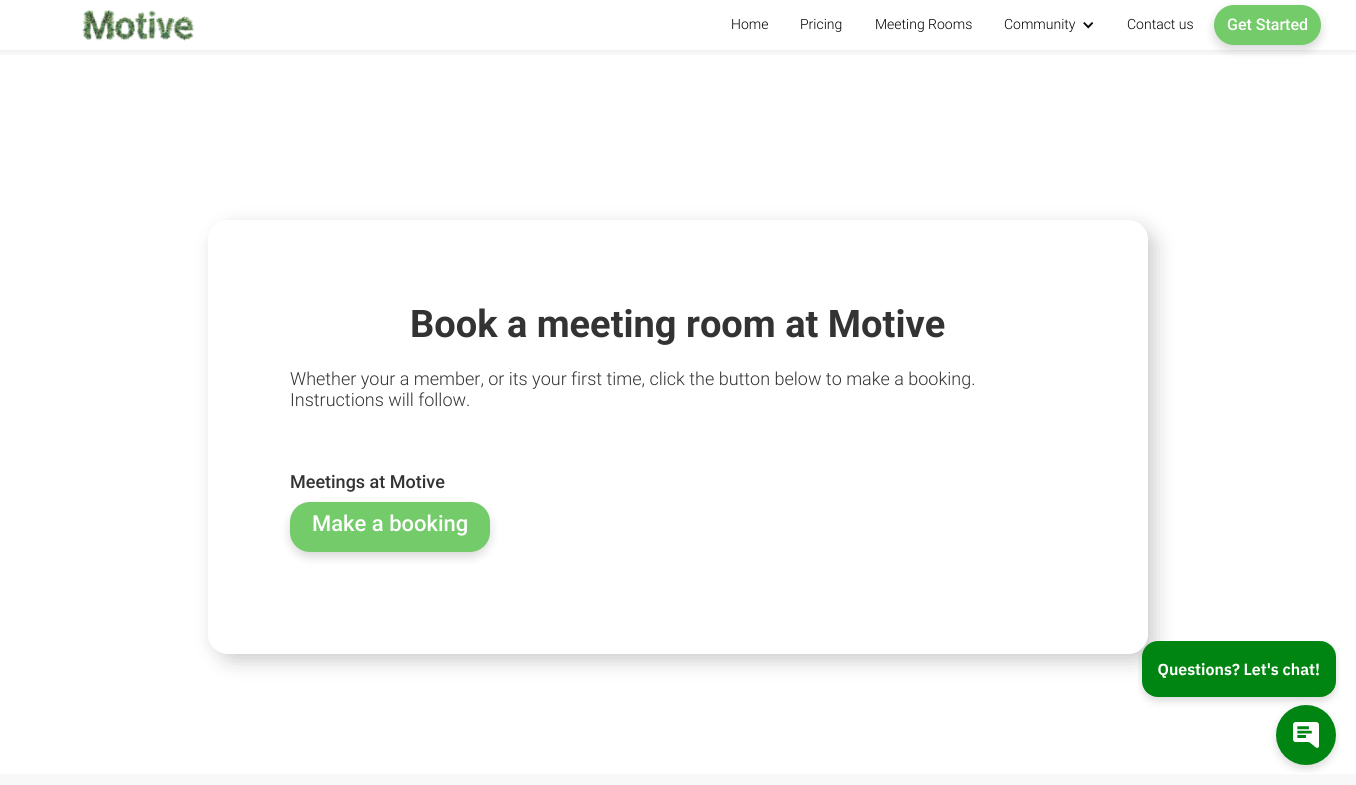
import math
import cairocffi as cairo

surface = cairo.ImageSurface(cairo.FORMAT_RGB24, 1356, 785)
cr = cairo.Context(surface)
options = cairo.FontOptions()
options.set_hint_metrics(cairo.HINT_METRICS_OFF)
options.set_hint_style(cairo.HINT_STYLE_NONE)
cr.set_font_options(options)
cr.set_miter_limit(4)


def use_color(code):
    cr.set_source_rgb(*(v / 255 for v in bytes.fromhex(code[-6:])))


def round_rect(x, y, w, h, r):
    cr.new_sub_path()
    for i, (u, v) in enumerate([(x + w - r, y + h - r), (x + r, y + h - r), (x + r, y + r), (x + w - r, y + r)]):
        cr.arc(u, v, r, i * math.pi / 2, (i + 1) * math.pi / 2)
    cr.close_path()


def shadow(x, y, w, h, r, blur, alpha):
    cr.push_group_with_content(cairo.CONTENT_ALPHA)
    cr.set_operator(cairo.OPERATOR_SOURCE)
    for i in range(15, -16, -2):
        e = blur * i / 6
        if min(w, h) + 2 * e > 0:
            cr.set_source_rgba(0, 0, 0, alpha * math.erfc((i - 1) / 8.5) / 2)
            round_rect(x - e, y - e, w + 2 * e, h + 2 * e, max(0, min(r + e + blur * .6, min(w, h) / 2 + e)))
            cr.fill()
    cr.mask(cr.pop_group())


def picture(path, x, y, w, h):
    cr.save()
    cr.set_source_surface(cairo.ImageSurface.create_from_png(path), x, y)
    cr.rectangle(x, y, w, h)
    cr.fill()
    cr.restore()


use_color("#ffffff")
cr.paint()
cr.save()
cr.rectangle(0, 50, 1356, 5)
cr.clip()
use_color("#000000")
shadow(0, 0, 1356, 50, 0, 5, 0.13)
cr.restore()
picture("img1.png", 82, 9, 113, 32)
cr.select_font_face("Roboto Light")
cr.set_font_size(14)
use_color("#000000")
cr.move_to(731, 29)
cr.show_text("Home")
cr.move_to(800, 29)
cr.show_text("Pricing")
cr.move_to(875, 29)
cr.show_text("Meeting Rooms")
cr.move_to(1004, 29)
cr.show_text("Community")
picture("img2.png", 1083, 22, 11, 7)
cr.move_to(1127, 29)
cr.show_text("Contact us")
use_color("#000000")
shadow(1214, 10, 107, 40, 20, 5, 0.15)
use_color("#74cb69")
round_rect(1214, 5, 107, 40, 20)
cr.fill()
cr.select_font_face("Roboto Medium")
cr.set_font_size(16)
use_color("#ffffff")
cr.move_to(1227, 30)
cr.show_text("Get Started")
cr.save()
cr.set_fill_rule(cairo.FILL_RULE_EVEN_ODD)
cr.new_path()
cr.move_to(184, 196)
cr.line_to(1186, 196)
cr.line_to(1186, 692)
cr.line_to(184, 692)
cr.close_path()
cr.move_to(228, 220)
cr.line_to(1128, 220)
cr.curve_to(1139, 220, 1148, 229, 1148, 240)
cr.line_to(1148, 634)
cr.curve_to(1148, 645, 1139, 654, 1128, 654)
cr.line_to(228, 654)
cr.curve_to(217, 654, 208, 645, 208, 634)
cr.line_to(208, 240)
cr.curve_to(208, 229, 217, 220, 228, 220)
cr.close_path()
cr.clip()
use_color("#000000")
shadow(215, 227, 940, 434, 20, 10, 0.2)
cr.restore()
cr.select_font_face("Roboto", cairo.FONT_SLANT_NORMAL, cairo.FONT_WEIGHT_BOLD)
cr.set_font_size(38)
use_color("#333333")
cr.move_to(410, 337)
cr.show_text("Book a meeting room at Motive")
cr.select_font_face("Roboto Light")
cr.set_font_size(18)
cr.move_to(290, 385)
cr.show_text("Whether your a member, or its your first time, click the button below to make a booking.")
cr.move_to(290, 406)
cr.show_text("Instructions will follow.")
cr.select_font_face("Roboto Medium")
cr.move_to(290, 488)
cr.show_text("Meetings at Motive")
use_color("#000000")
shadow(290, 507, 200, 50, 20, 5, 0.15)
use_color("#74cb69")
round_rect(290, 502, 200, 50, 20)
cr.fill()
cr.set_font_size(22)
use_color("#ffffff")
cr.move_to(312, 531)
cr.show_text("Make a booking")
picture("img3.png", 1138, 641, 202, 132)
use_color("#f8f8f8")
cr.rectangle(0, 774, 1356, 11)
cr.fill()
surface.write_to_png("result.png")
